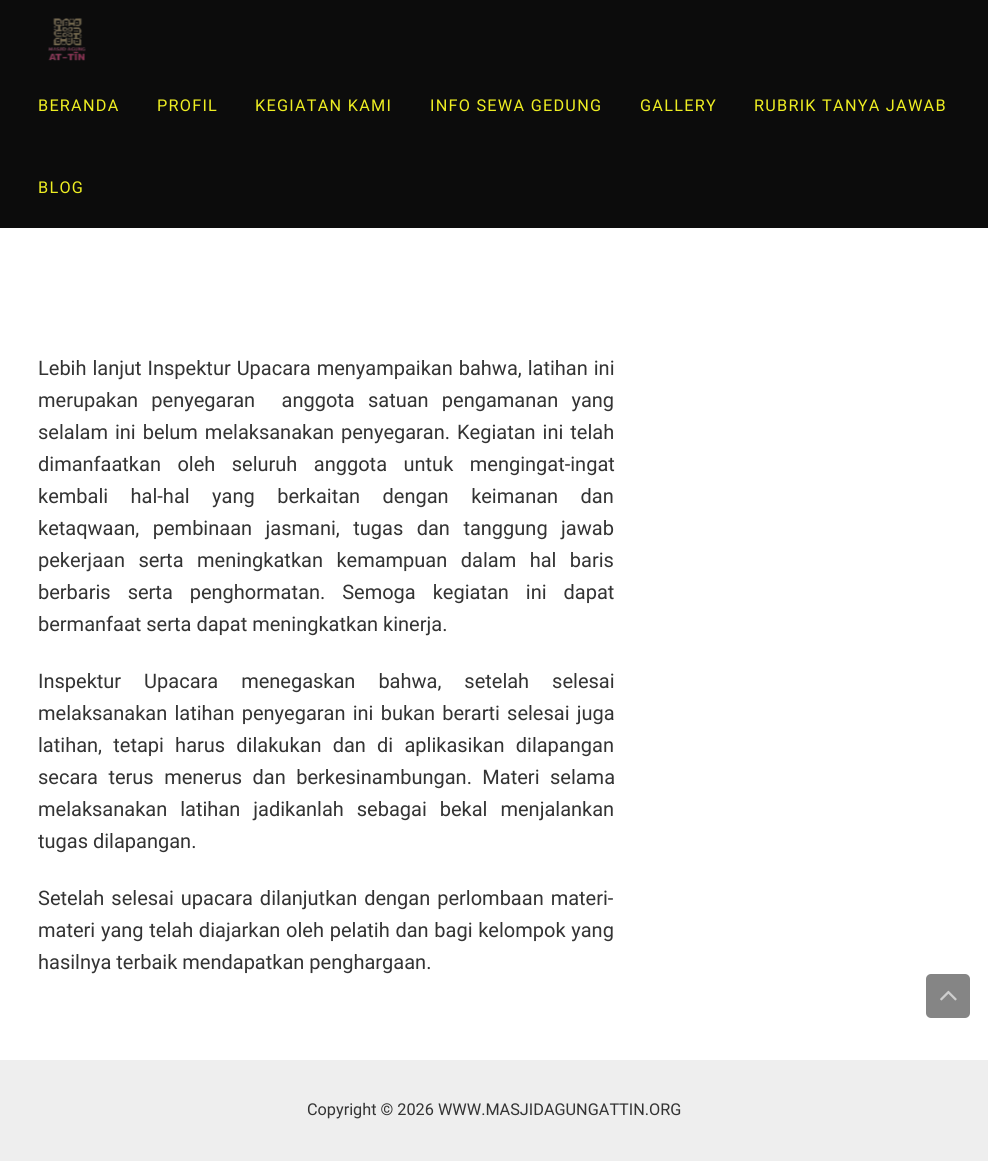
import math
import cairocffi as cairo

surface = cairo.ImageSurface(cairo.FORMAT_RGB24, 988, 1161)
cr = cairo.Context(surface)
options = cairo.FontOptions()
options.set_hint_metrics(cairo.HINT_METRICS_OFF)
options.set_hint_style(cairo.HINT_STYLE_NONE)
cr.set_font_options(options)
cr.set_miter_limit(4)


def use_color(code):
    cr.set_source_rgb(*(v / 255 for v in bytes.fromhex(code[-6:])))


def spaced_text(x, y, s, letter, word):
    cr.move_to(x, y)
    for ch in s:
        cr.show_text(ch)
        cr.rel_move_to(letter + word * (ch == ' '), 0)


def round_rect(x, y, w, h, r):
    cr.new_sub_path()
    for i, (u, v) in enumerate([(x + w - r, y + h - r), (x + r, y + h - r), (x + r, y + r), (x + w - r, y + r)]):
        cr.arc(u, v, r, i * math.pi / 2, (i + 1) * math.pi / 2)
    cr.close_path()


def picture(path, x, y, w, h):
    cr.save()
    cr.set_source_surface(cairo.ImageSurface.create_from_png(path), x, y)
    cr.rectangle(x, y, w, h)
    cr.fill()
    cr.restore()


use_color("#eeeeee")
cr.paint()
use_color("#ffffff")
cr.rectangle(0, 228, 988, 832)
cr.fill()
use_color("#0c0c0c")
cr.rectangle(0, 0, 988, 228)
cr.fill()
picture("img1.png", 48, 18, 38, 43)
cr.select_font_face("Roboto")
cr.set_font_size(16.25)
use_color("#eeee22")
spaced_text(38, 111, "BERANDA", 1.25, 0)
spaced_text(157, 111, "PROFIL", 1.25, 0)
spaced_text(255, 111, "KEGIATAN KAMI", 1.25, 0)
spaced_text(430, 111, "INFO SEWA GEDUNG", 1.25, 0)
spaced_text(640, 111, "GALLERY", 1.25, 0)
spaced_text(754, 111, "RUBRIK TANYA JAWAB", 1.25, 0)
spaced_text(38, 193, "BLOG", 1.25, 0)
cr.set_font_size(20)
use_color("#333333")
spaced_text(38, 375, "Lebih lanjut Inspektur Upacara menyampaikan bahwa, latihan ini", 0, 1)
spaced_text(38, 407, "merupakan penyegaran  anggota satuan pengamanan yang", 0, 8.25)
spaced_text(38, 439, "selalam ini belum melaksanakan penyegaran. Kegiatan ini telah", 0, 2)
spaced_text(38, 471, "dimanfaatkan oleh seluruh anggota untuk mengingat-ingat", 0, 11.5)
spaced_text(38, 503, "kembali hal-hal yang berkaitan dengan keimanan dan", 0, 17.5)
spaced_text(38, 535, "ketaqwaan, pembinaan jasmani, tugas dan tanggung jawab", 0, 8.5)
spaced_text(38, 567, "pekerjaan serta meningkatkan kemampuan dalam hal baris", 0, 8.5)
spaced_text(38, 599, "berbaris serta penghormatan. Semoga kegiatan ini dapat", 0, 12)
cr.move_to(38, 631)
cr.show_text("bermanfaat serta dapat meningkatkan kinerja.")
spaced_text(38, 688, "Inspektur Upacara menegaskan bahwa, setelah selesai", 0, 18)
spaced_text(38, 720, "melaksanakan latihan penyegaran ini bukan berarti selesai juga", 0, 2.25)
spaced_text(38, 752, "latihan, tetapi harus dilakukan dan di aplikasikan dilapangan", 0, 6.25)
spaced_text(38, 784, "secara terus menerus dan berkesinambungan. Materi selama", 0, 5.5)
spaced_text(38, 816, "melaksanakan latihan jadikanlah sebagai bekal menjalankan", 0, 8)
cr.move_to(38, 848)
cr.show_text("tugas dilapangan.")
spaced_text(38, 905, "Setelah selesai upacara dilanjutkan dengan perlombaan materi-", 0, 2)
spaced_text(38, 937, "materi yang telah diajarkan oleh pelatih dan bagi kelompok yang", 0, 0.75)
cr.move_to(38, 969)
cr.show_text("hasilnya terbaik mendapatkan penghargaan.")
cr.set_font_size(16.25)
cr.move_to(307, 1115)
cr.show_text("Copyright © 2026 WWW.MASJIDAGUNGATTIN.ORG")
use_color("#858585")
round_rect(926, 974, 44, 44, 5)
cr.fill()
picture("img2.png", 940, 990, 17, 11)
surface.write_to_png("result.png")
